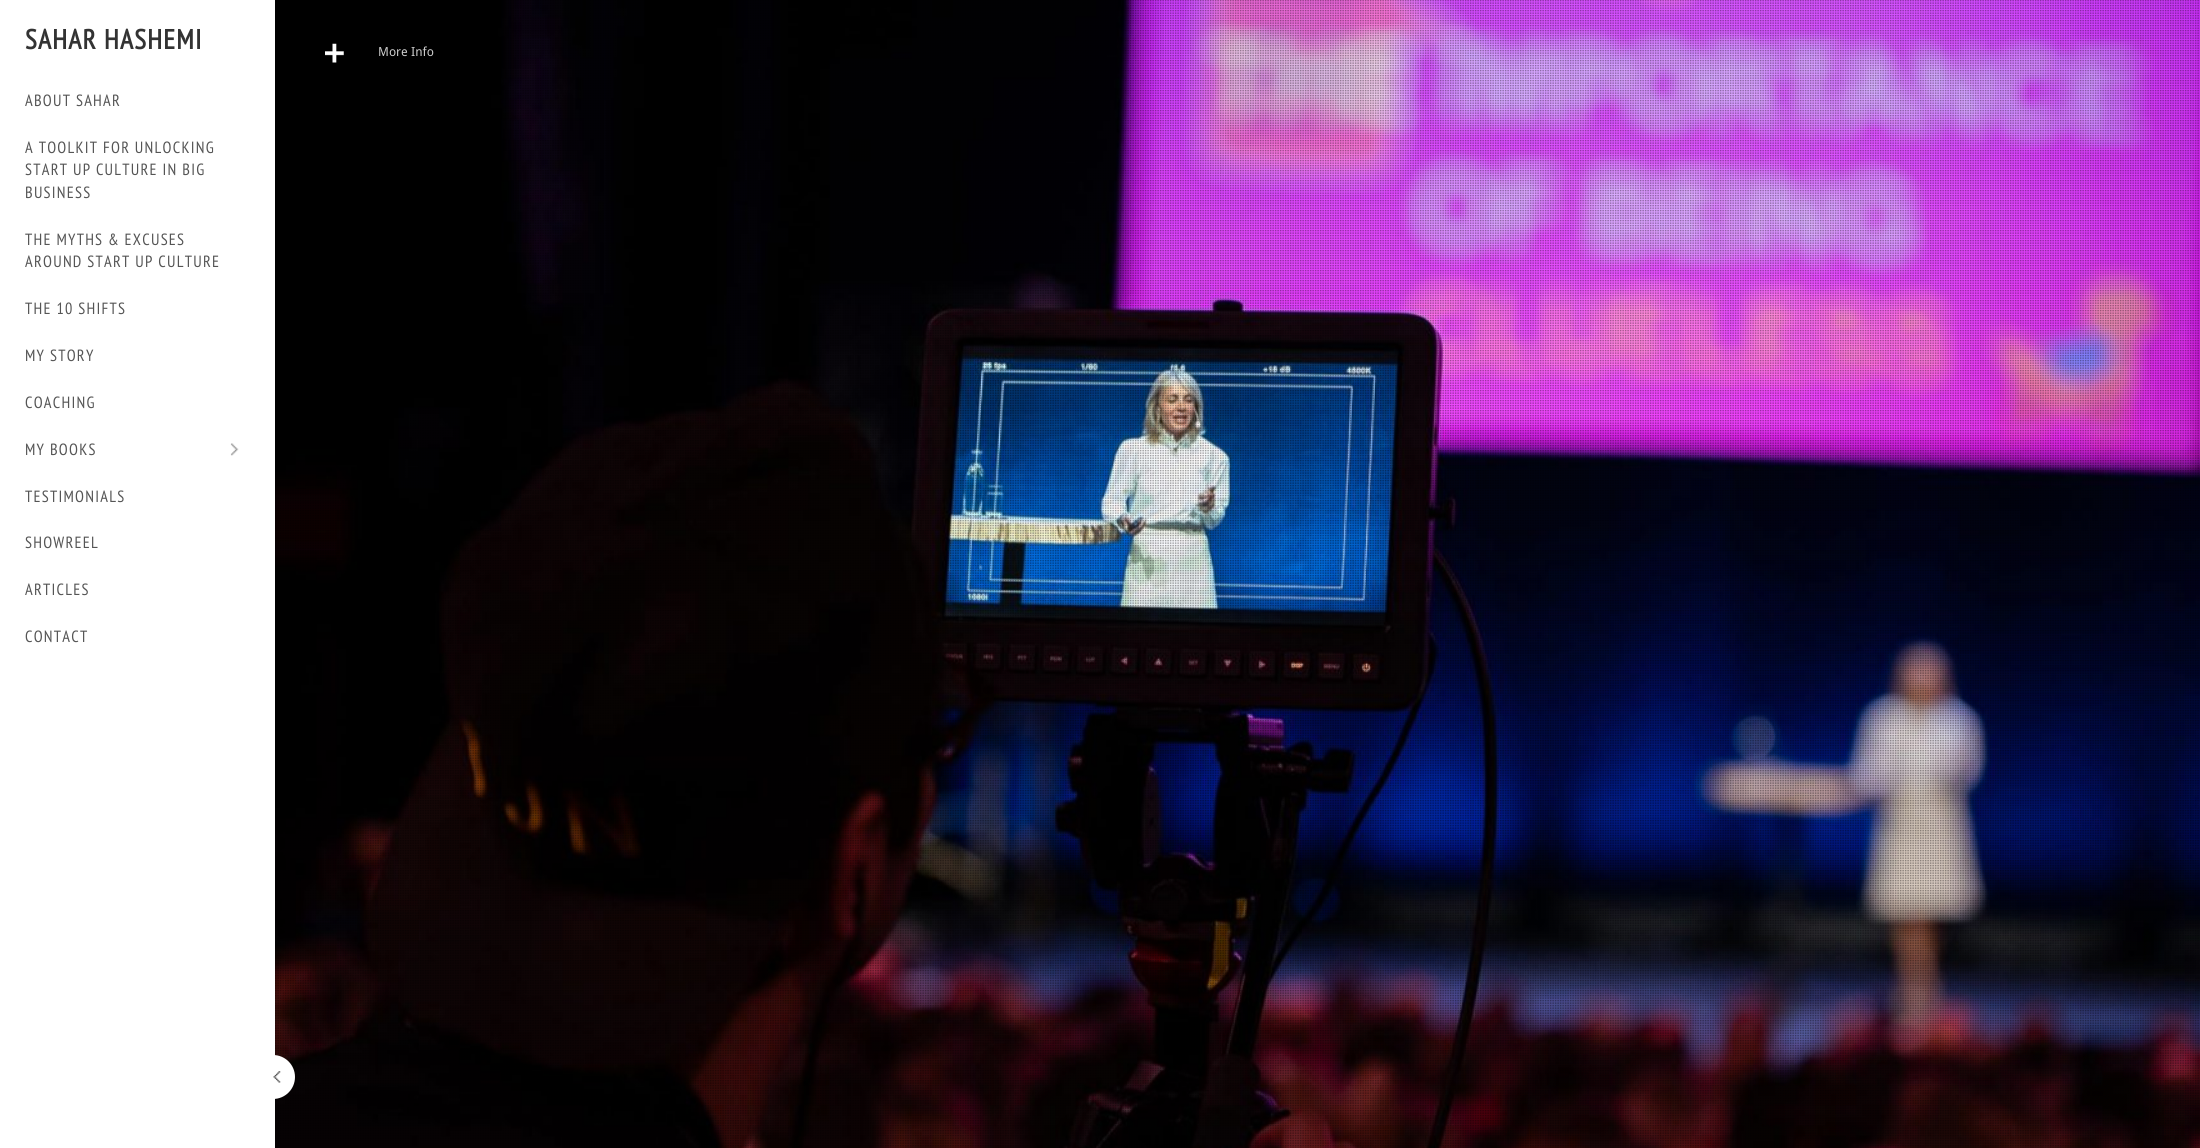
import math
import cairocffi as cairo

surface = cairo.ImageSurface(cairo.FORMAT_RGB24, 2200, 1148)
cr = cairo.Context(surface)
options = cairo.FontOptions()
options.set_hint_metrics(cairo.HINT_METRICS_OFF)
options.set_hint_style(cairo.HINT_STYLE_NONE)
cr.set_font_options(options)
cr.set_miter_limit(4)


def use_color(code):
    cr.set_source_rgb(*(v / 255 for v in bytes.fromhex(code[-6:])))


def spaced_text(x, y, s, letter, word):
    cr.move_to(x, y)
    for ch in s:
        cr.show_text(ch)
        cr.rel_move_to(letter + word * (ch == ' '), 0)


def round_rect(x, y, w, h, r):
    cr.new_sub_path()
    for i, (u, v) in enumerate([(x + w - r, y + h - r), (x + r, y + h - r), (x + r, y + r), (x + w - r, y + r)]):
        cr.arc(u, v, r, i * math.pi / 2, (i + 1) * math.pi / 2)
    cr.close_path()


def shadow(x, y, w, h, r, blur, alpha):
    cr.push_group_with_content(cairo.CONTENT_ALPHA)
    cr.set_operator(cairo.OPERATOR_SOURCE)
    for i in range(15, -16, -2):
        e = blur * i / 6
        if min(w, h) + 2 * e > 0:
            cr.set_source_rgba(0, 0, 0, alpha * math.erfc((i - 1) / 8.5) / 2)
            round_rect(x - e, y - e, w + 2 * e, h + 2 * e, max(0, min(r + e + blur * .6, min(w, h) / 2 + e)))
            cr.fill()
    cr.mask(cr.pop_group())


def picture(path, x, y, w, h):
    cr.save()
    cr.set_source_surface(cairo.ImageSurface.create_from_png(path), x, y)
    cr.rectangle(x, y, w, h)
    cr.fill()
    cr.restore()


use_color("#ffffff")
cr.paint()
picture("img3.png", 275, 0, 1925, 1148)
picture("img4.png", 275, 0, 1925, 1148)
use_color("#000000")
shadow(0, 0, 275, 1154, 0, 2, 0.25)
use_color("#ffffff")
cr.rectangle(0, 0, 275, 1148)
cr.fill()
cr.select_font_face("PT Sans Narrow", cairo.FONT_SLANT_NORMAL, cairo.FONT_WEIGHT_BOLD)
cr.set_font_size(27.5)
use_color("#333333")
spaced_text(25, 49, "SAHAR HASHEMI", 1.25, 0)
cr.select_font_face("PT Sans Narrow")
cr.set_font_size(16.25)
use_color("#555555")
spaced_text(25, 106, "ABOUT SAHAR", 1.25, 0)
spaced_text(25, 153, "A TOOLKIT FOR UNLOCKING", 1.25, 0)
spaced_text(25, 175, "START UP CULTURE IN BIG", 1.25, 0)
spaced_text(25, 198, "BUSINESS", 1.25, 0)
spaced_text(25, 245, "THE MYTHS & EXCUSES", 1.25, 0)
spaced_text(25, 267, "AROUND START UP CULTURE", 1.25, 0)
spaced_text(25, 314, "THE 10 SHIFTS", 1.25, 0)
spaced_text(25, 361, "MY STORY", 1.25, 0)
spaced_text(25, 408, "COACHING", 1.25, 0)
spaced_text(25, 455, "MY BOOKS", 1.25, 0)
picture("img1.png", 230, 443, 9, 13)
spaced_text(25, 502, "TESTIMONIALS", 1.25, 0)
spaced_text(25, 548, "SHOWREEL", 1.25, 0)
spaced_text(25, 595, "ARTICLES", 1.25, 0)
spaced_text(25, 642, "CONTACT", 1.25, 0)
use_color("#ffffff")
cr.new_path()
cr.arc(273, 1077, 22, 0, 2 * math.pi)
cr.fill()
picture("img2.png", 273, 1071, 8, 12)
picture("img5.png", 325, 43, 19, 20)
cr.select_font_face("Droid Sans")
cr.set_font_size(12.5)
use_color("#cccccc")
cr.move_to(378, 56)
cr.show_text("More Info")
surface.write_to_png("result.png")
